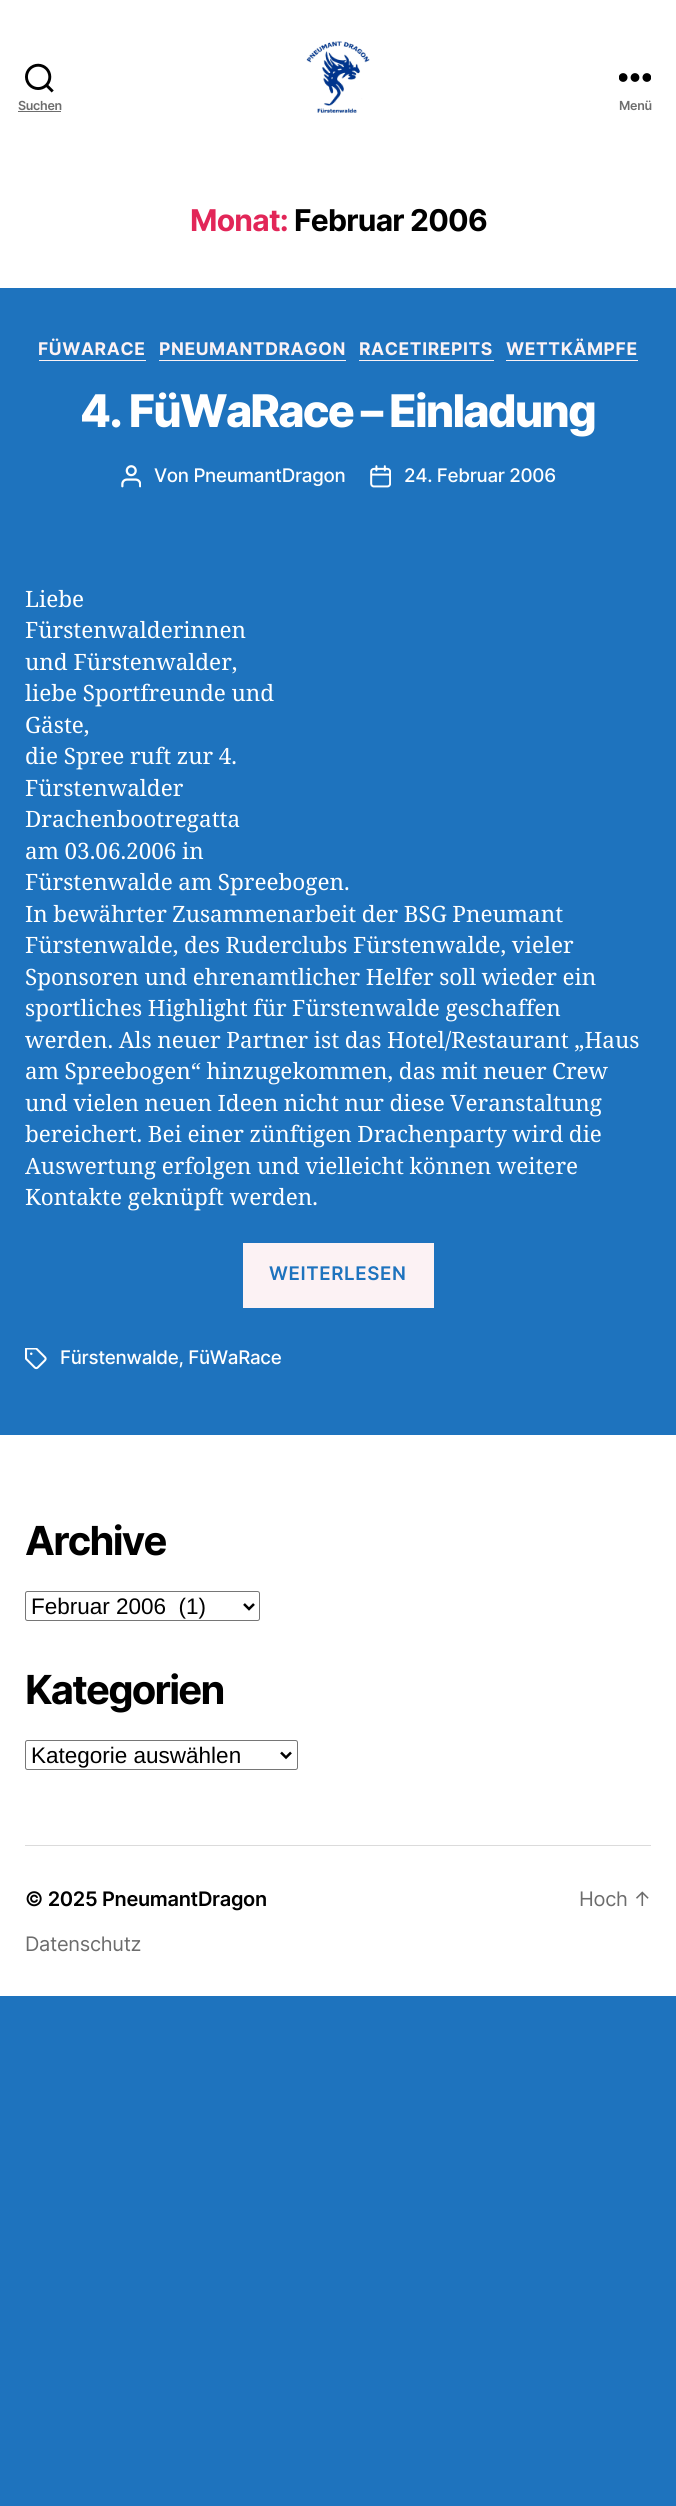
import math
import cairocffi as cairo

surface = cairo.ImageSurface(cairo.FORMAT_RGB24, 676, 2506)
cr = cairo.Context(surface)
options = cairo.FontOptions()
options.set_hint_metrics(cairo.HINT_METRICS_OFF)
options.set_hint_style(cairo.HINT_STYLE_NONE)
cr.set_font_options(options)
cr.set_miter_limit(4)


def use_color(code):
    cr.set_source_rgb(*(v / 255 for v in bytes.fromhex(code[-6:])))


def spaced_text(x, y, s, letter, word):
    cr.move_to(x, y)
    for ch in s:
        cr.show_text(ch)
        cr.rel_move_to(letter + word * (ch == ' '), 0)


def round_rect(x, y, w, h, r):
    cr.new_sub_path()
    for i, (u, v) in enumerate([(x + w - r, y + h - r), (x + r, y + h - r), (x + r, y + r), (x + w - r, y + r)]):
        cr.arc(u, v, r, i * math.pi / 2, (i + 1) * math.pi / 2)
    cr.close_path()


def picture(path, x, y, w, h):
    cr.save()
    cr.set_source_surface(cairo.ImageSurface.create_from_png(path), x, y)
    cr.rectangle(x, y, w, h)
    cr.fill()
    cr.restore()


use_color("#1e73be")
cr.paint()
use_color("#ffffff")
cr.rectangle(0, 0, 676, 288)
cr.fill()
picture("img1.png", 25, 63, 29, 30)
cr.select_font_face("Inter SemiBold")
cr.set_font_size(12.5)
use_color("#6d6d6d")
spaced_text(18, 110, "Suchen", -0.3, 0)
cr.rectangle(18, 111, 43, 1)
cr.fill()
picture("img2.png", 306, 41, 64, 72)
picture("img3.png", 619, 73, 32, 9)
spaced_text(619, 110, "Menü", -0.3, 0)
cr.select_font_face("Inter", cairo.FONT_SLANT_NORMAL, cairo.FONT_WEIGHT_BOLD)
cr.set_font_size(30)
use_color("#e22658")
spaced_text(190, 231, "Monat:", -0.75, 0)
use_color("#000000")
spaced_text(294, 231, "Februar 2006", -0.75, 0)
use_color("#fcf2f4")
cr.rectangle(39, 360, 107, 1)
cr.fill()
cr.set_font_size(17.5)
spaced_text(38, 355, "FÜWARACE", 0.6, 0)
cr.rectangle(159, 360, 187, 1)
cr.fill()
spaced_text(159, 355, "PNEUMANTDRAGON", 0.6, 0)
cr.rectangle(359, 360, 135, 1)
cr.fill()
spaced_text(359, 355, "RACETIREPITS", 0.6, 0)
cr.rectangle(506, 360, 132, 1)
cr.fill()
spaced_text(506, 355, "WETTKÄMPFE", 0.6, 0)
cr.select_font_face("Inter ExtraBold")
cr.set_font_size(45)
use_color("#ffffff")
spaced_text(80, 427, "4. FüWaRace – Einladung", -1.9, 0)
picture("img4.png", 121, 465, 20, 23)
cr.select_font_face("Inter Medium")
cr.set_font_size(18.75)
spaced_text(154, 482, "Von PneumantDragon", -0.3, 0)
picture("img5.png", 370, 465, 21, 23)
spaced_text(404, 482, "24. Februar 2006", -0.3, 0)
cr.select_font_face("Noto Serif")
cr.set_font_size(22.5)
cr.move_to(25, 607)
cr.show_text("Liebe")
cr.move_to(25, 638)
cr.show_text("Fürstenwalderinnen")
cr.move_to(25, 670)
cr.show_text("und Fürstenwalder,")
spaced_text(25, 701, "liebe Sportfreunde und", 0, -0.25)
cr.move_to(25, 733)
cr.show_text("Gäste,")
spaced_text(25, 764, "die Spree ruft zur 4.", 0, -0.25)
cr.move_to(25, 796)
cr.show_text("Fürstenwalder")
cr.move_to(25, 827)
cr.show_text("Drachenbootregatta")
spaced_text(25, 859, "am 03.06.2006 in", 0, -0.25)
spaced_text(25, 890, "Fürstenwalde am Spreebogen.", 0, -0.25)
spaced_text(25, 922, "In bewährter Zusammenarbeit der BSG Pneumant", 0, -0.25)
spaced_text(25, 953, "Fürstenwalde, des Ruderclubs Fürstenwalde, vieler", 0, -0.25)
spaced_text(25, 985, "Sponsoren und ehrenamtlicher Helfer soll wieder ein", 0, -0.25)
spaced_text(25, 1016, "sportliches Highlight für Fürstenwalde geschaffen", 0, -0.25)
spaced_text(25, 1048, "werden. Als neuer Partner ist das Hotel/Restaurant „Haus", 0, -0.25)
spaced_text(25, 1079, "am Spreebogen“ hinzugekommen, das mit neuer Crew", 0, -0.25)
spaced_text(25, 1111, "und vielen neuen Ideen nicht nur diese Veranstaltung", 0, -0.25)
spaced_text(25, 1142, "bereichert. Bei einer zünftigen Drachenparty wird die", 0, -0.25)
spaced_text(25, 1174, "Auswertung erfolgen und vielleicht können weitere", 0, -0.25)
cr.move_to(25, 1205)
cr.show_text("Kontakte geknüpft werden.")
use_color("#fcf2f4")
cr.rectangle(243, 1243, 191, 65)
cr.fill()
cr.select_font_face("Inter SemiBold")
cr.set_font_size(18.75)
use_color("#1e73be")
spaced_text(269, 1280, "WEITERLESEN", 0.6, 0)
picture("img6.png", 25, 1348, 22, 22)
cr.select_font_face("Inter Medium")
use_color("#ffffff")
spaced_text(60, 1364, "Fürstenwalde, FüWaRace", -0.3, 0)
cr.rectangle(0, 1435, 676, 561)
cr.fill()
use_color("#dbdbdb")
cr.rectangle(25, 1845, 626, 1)
cr.fill()
cr.select_font_face("Inter", cairo.FONT_SLANT_NORMAL, cairo.FONT_WEIGHT_BOLD)
cr.set_font_size(40)
use_color("#000000")
spaced_text(25, 1555, "Archive", -1.75, 0)
round_rect(25.5, 1591.5, 234, 29, 2)
use_color("#767676")
cr.set_line_width(1)
cr.stroke()
cr.new_path()
cr.move_to(244, 1604)
cr.line_to(249, 1609)
cr.line_to(254, 1604)
use_color("#000000")
cr.set_line_width(2.5)
cr.stroke()
cr.select_font_face("Liberation Sans")
cr.set_font_size(22.5)
cr.move_to(31, 1614)
cr.show_text("Februar 2006  (1)")
cr.select_font_face("Inter", cairo.FONT_SLANT_NORMAL, cairo.FONT_WEIGHT_BOLD)
cr.set_font_size(40)
spaced_text(25, 1704, "Kategorien", -1.75, 0)
round_rect(25.5, 1740.5, 272, 29, 2)
use_color("#767676")
cr.set_line_width(1)
cr.stroke()
cr.new_path()
cr.move_to(281, 1752.5)
cr.line_to(286, 1757.5)
cr.line_to(291, 1752.5)
use_color("#000000")
cr.set_line_width(2.5)
cr.stroke()
cr.select_font_face("Liberation Sans")
cr.set_font_size(22.5)
cr.move_to(31, 1763)
cr.show_text("Kategorie auswählen")
cr.select_font_face("Inter SemiBold")
cr.set_font_size(20)
spaced_text(25, 1906, "© 2025 PneumantDragon", -0.3, 0)
cr.select_font_face("Inter")
use_color("#6d6d6d")
spaced_text(25, 1951, "Datenschutz", -0.3, 0)
spaced_text(579, 1906, "Hoch ↑", -0.3, 0)
surface.write_to_png("result.png")
